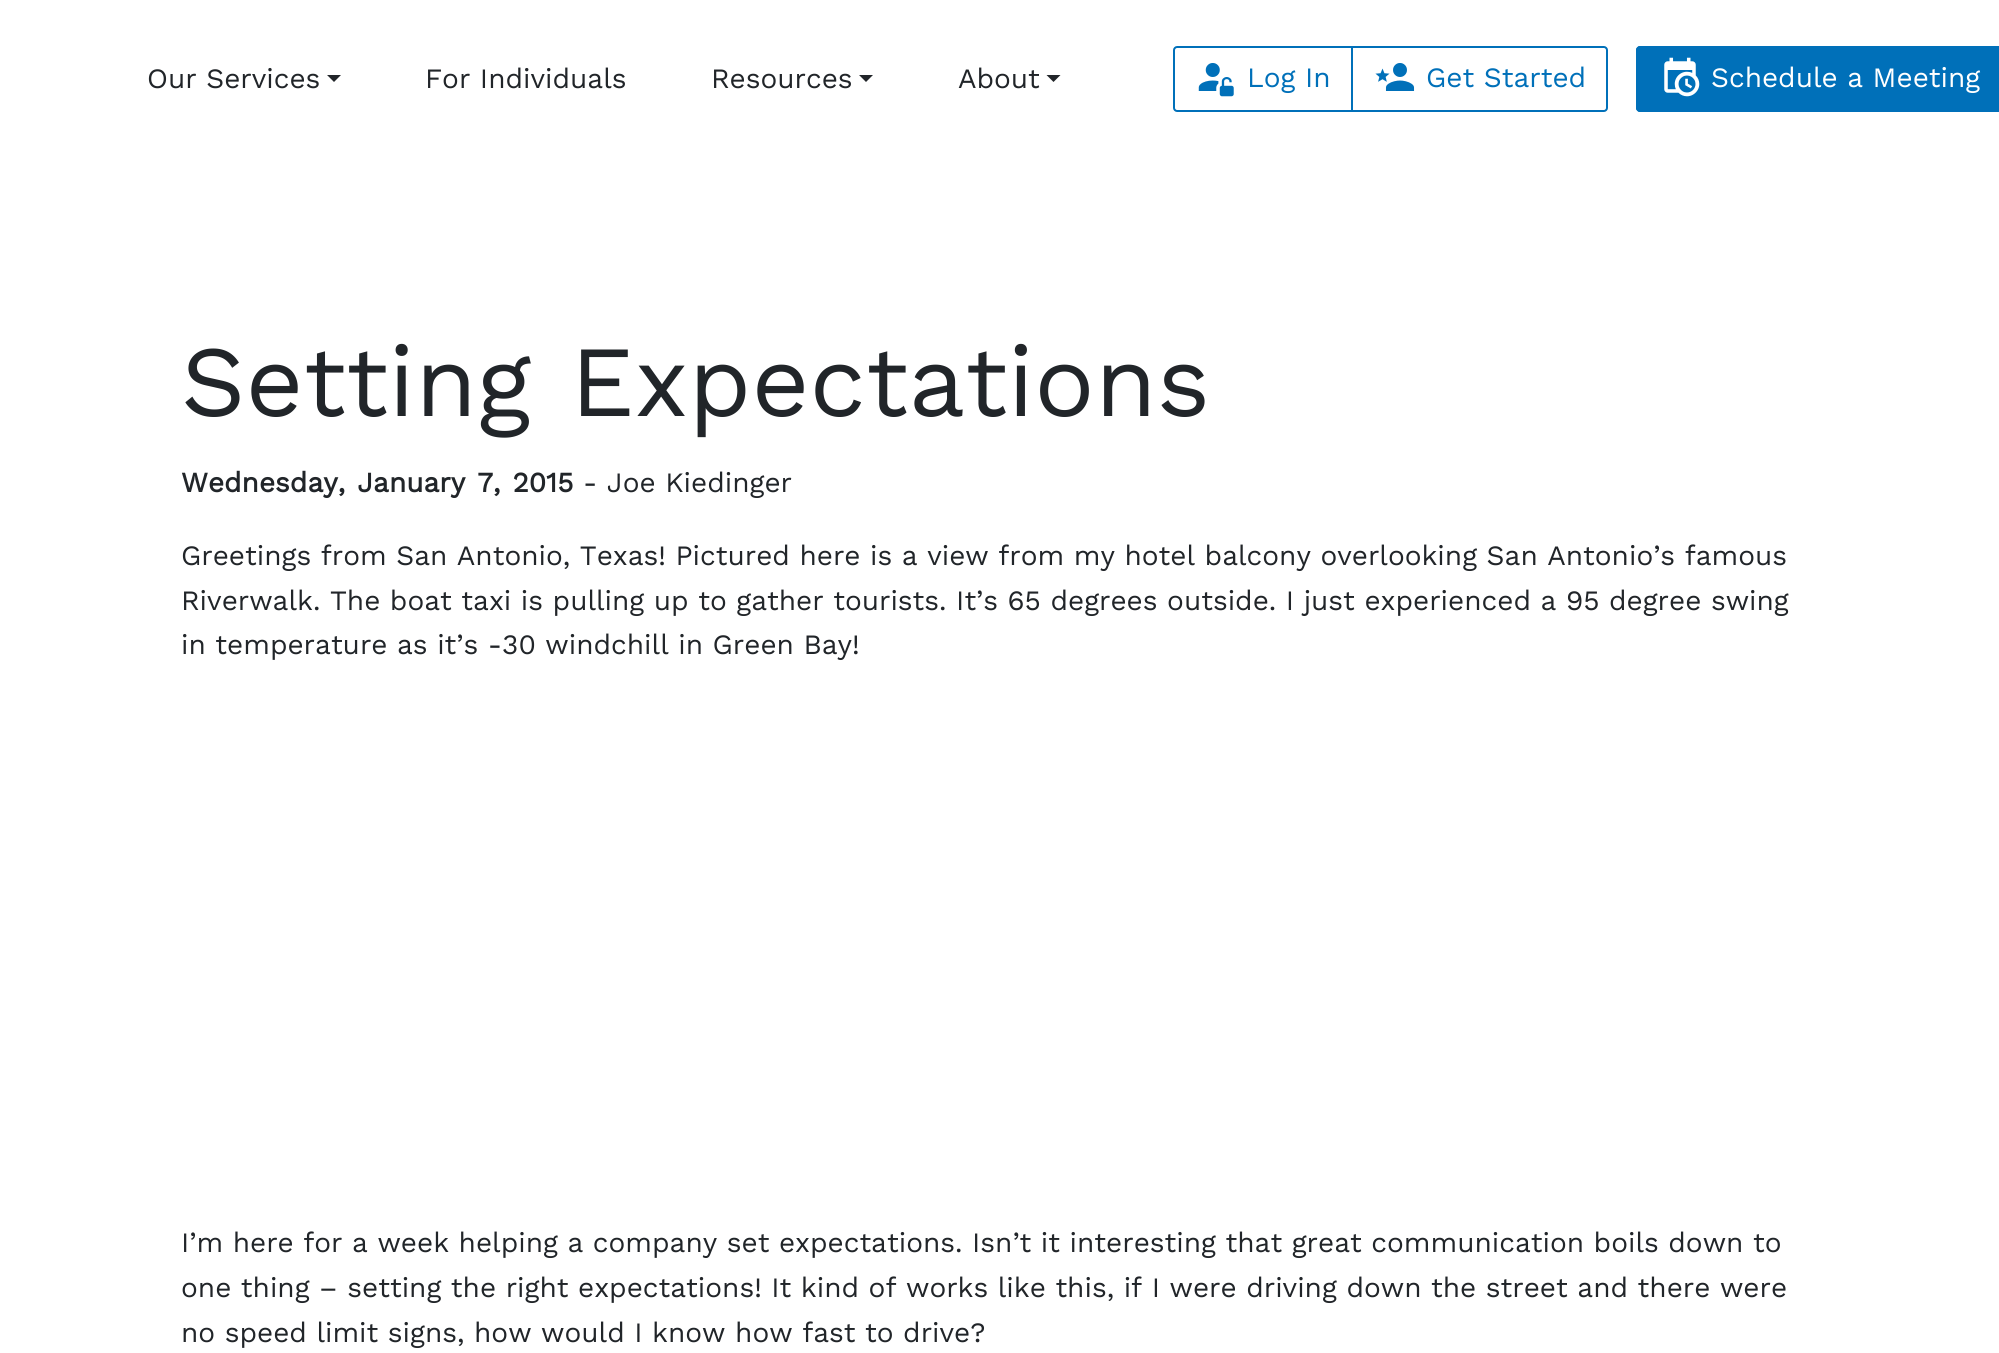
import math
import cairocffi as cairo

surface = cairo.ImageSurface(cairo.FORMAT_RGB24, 1999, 1353)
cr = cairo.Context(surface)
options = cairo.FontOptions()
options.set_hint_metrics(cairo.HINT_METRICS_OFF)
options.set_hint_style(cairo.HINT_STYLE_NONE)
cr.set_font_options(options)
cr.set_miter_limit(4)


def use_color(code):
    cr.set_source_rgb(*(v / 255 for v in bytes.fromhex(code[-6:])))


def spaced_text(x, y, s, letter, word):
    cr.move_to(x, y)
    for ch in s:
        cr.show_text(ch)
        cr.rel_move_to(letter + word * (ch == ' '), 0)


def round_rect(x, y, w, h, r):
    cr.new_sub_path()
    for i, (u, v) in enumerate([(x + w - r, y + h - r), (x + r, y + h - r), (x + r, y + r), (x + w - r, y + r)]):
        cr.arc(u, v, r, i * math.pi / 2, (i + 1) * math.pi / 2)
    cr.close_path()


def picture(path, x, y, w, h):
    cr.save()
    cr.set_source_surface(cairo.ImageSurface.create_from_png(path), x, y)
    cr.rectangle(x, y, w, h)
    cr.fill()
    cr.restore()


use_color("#ffffff")
cr.paint()
cr.select_font_face("Work Sans")
cr.set_font_size(28)
use_color("#212529")
cr.move_to(147, 88)
cr.show_text("Our Services")
cr.new_path()
cr.move_to(327, 75)
cr.line_to(341, 75)
cr.line_to(334, 82)
cr.close_path()
cr.fill()
cr.move_to(425, 88)
cr.show_text("For Individuals")
cr.move_to(711, 88)
cr.show_text("Resources")
cr.new_path()
cr.move_to(859, 75)
cr.line_to(873, 75)
cr.line_to(866, 82)
cr.close_path()
cr.fill()
cr.move_to(958, 88)
cr.show_text("About")
cr.new_path()
cr.move_to(1046.5, 75)
cr.line_to(1060.5, 75)
cr.line_to(1053.5, 82)
cr.close_path()
cr.fill()
cr.new_path()
cr.move_to(1177, 47)
cr.line_to(1352, 47)
cr.line_to(1352, 111)
cr.line_to(1177, 111)
cr.curve_to(1175.5, 111, 1174, 109.5, 1174, 108)
cr.line_to(1174, 50)
cr.curve_to(1174, 48.5, 1175.5, 47, 1177, 47)
cr.close_path()
use_color("#0070b9")
cr.stroke()
picture("img1.png", 1198, 63, 36, 34)
cr.move_to(1247, 87)
cr.show_text("Log In")
cr.new_path()
cr.move_to(1352, 47)
cr.line_to(1604, 47)
cr.curve_to(1605.5, 47, 1607, 48.5, 1607, 50)
cr.line_to(1607, 108)
cr.curve_to(1607, 109.5, 1605.5, 111, 1604, 111)
cr.line_to(1352, 111)
cr.close_path()
cr.stroke()
picture("img2.png", 1375, 63, 40, 28)
cr.move_to(1426, 87)
cr.show_text("Get Started")
cr.new_path()
cr.move_to(1640, 46)
cr.line_to(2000, 46)
cr.line_to(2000, 112)
cr.line_to(1640, 112)
cr.curve_to(1638, 112, 1636, 110, 1636, 108)
cr.line_to(1636, 50)
cr.curve_to(1636, 48, 1638, 46, 1640, 46)
cr.close_path()
cr.fill()
round_rect(1637, 47, 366, 64, 3)
cr.stroke()
picture("img3.png", 1664, 57, 36, 40)
use_color("#ffffff")
cr.move_to(1711, 87)
cr.show_text("Schedule a Meeting")
cr.set_font_size(100.75)
use_color("#212529")
spaced_text(181, 416, "Setting Expectations", 0, 5)
cr.select_font_face("Work Sans", cairo.FONT_SLANT_NORMAL, cairo.FONT_WEIGHT_BOLD)
cr.set_font_size(28)
spaced_text(181, 492, "Wednesday, January 7, 2015", 0, 2.5)
cr.select_font_face("Work Sans")
cr.move_to(583, 492)
cr.show_text("- Joe Kiedinger")
cr.move_to(181, 565)
cr.show_text("Greetings from San Antonio, Texas! Pictured here is a view from my hotel balcony overlooking San Antonio’s famous")
cr.move_to(181, 610)
cr.show_text("Riverwalk. The boat taxi is pulling up to gather tourists. It’s 65 degrees outside. I just experienced a 95 degree swing")
cr.move_to(181, 654)
cr.show_text("in temperature as it’s -30 windchill in Green Bay!")
cr.move_to(181, 1252)
cr.show_text("I’m here for a week helping a company set expectations. Isn’t it interesting that great communication boils down to")
cr.move_to(181, 1297)
cr.show_text("one thing – setting the right expectations! It kind of works like this, if I were driving down the street and there were")
cr.move_to(181, 1342)
cr.show_text("no speed limit signs, how would I know how fast to drive?")
surface.write_to_png("result.png")
